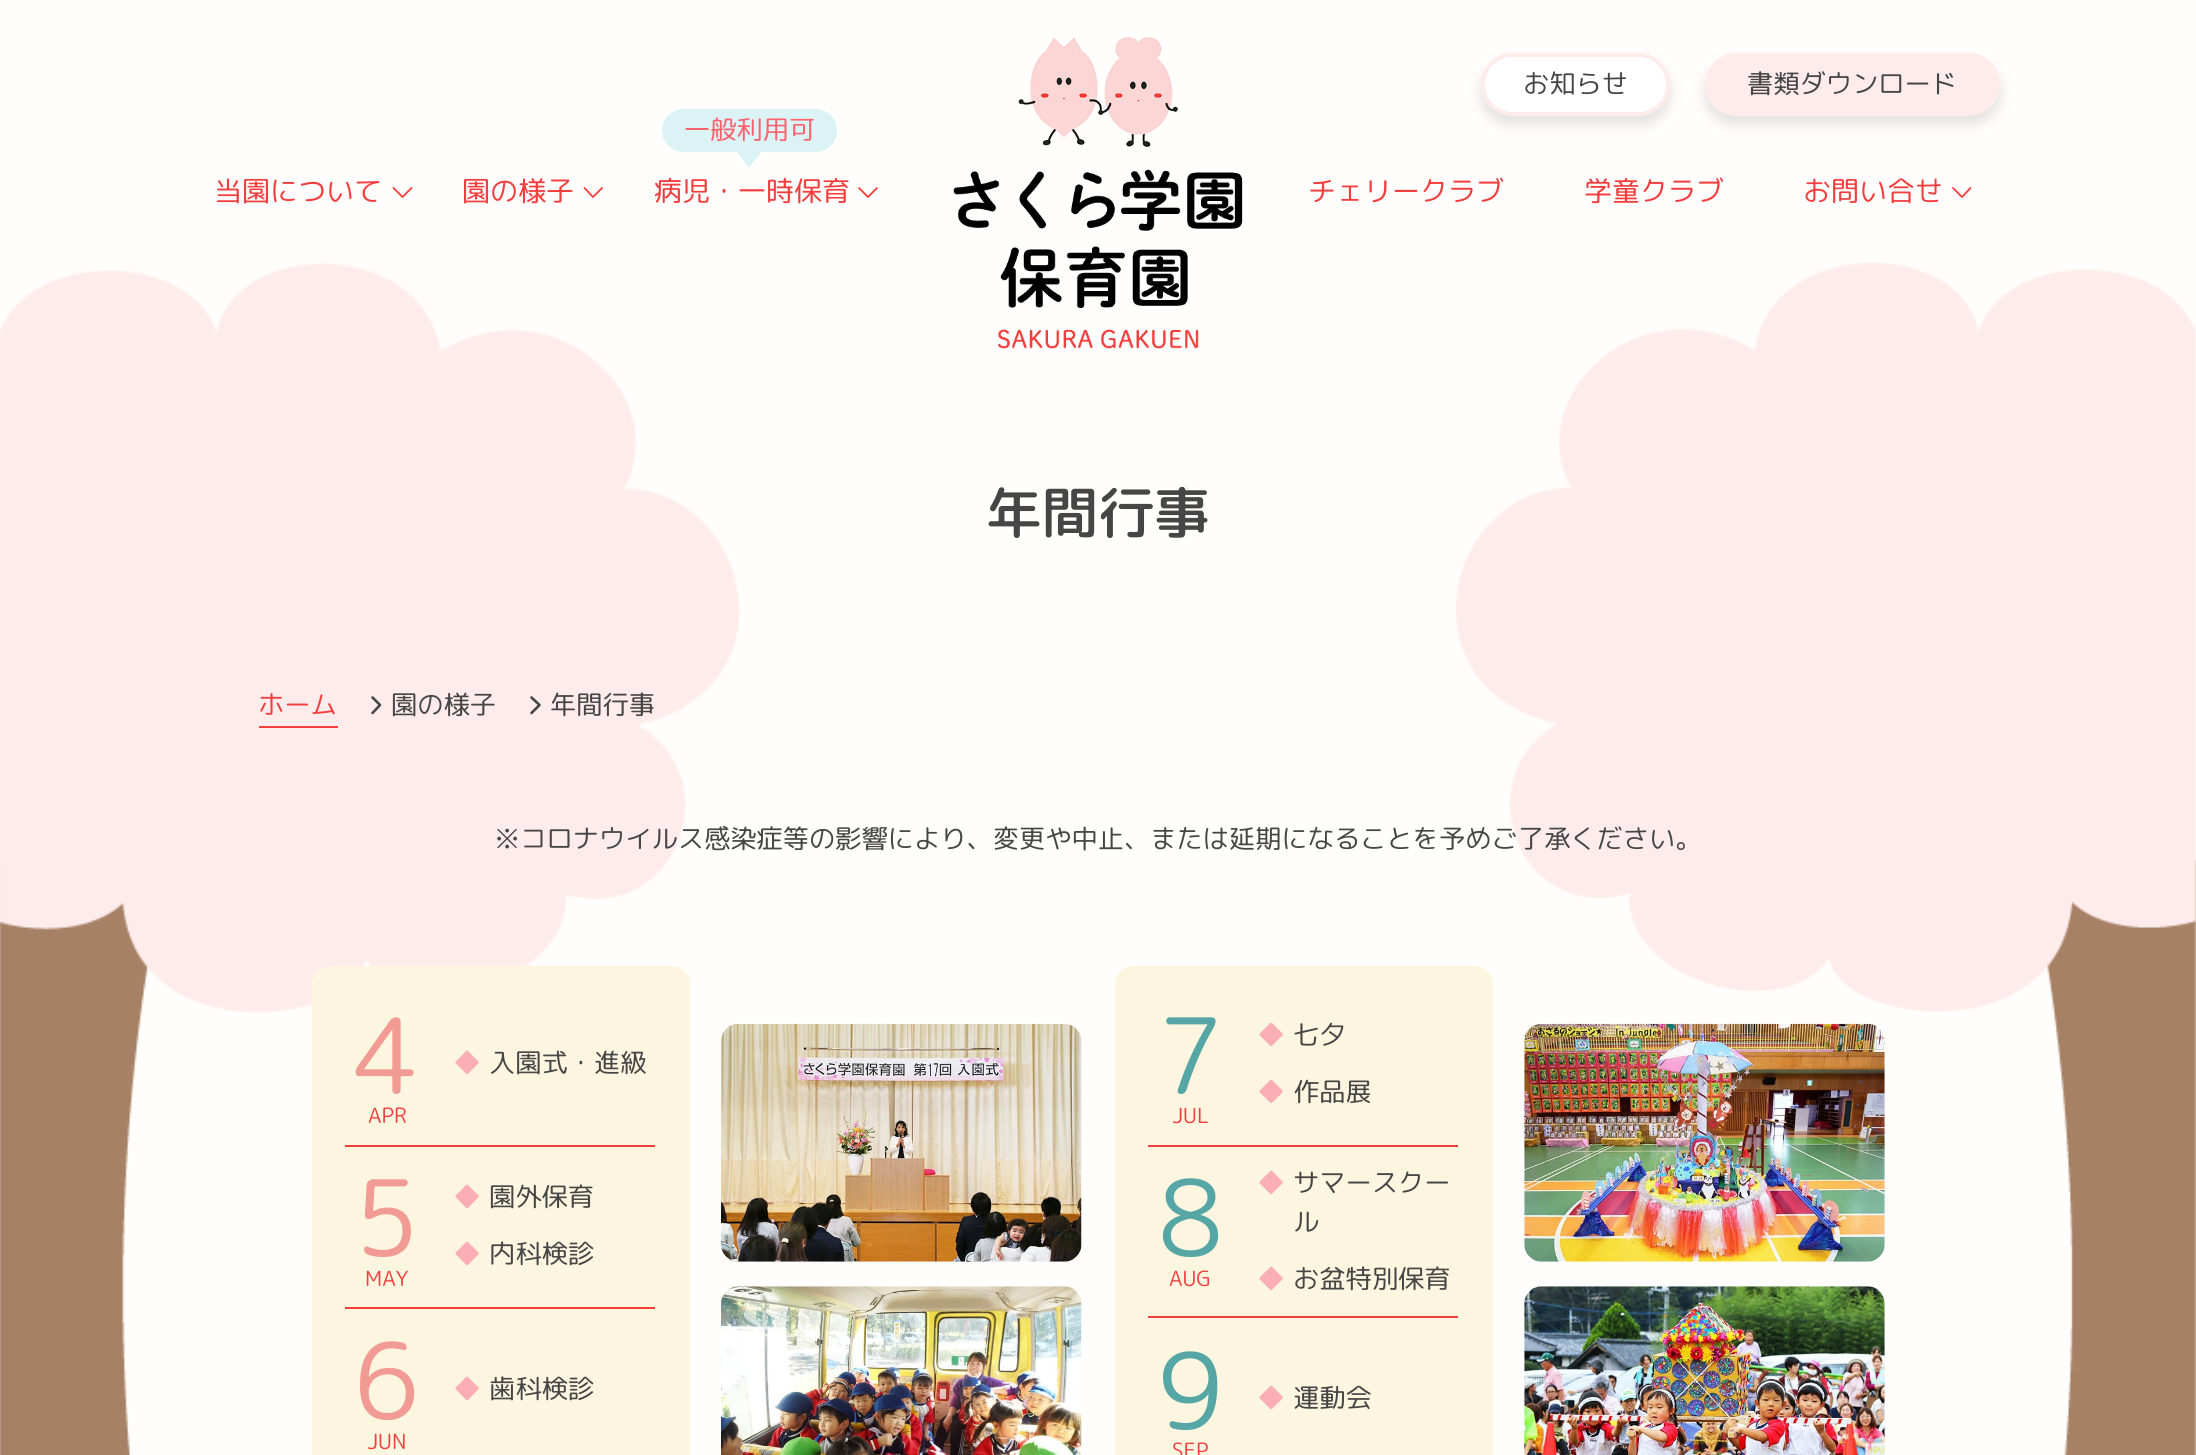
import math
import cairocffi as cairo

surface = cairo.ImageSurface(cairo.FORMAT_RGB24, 2196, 1455)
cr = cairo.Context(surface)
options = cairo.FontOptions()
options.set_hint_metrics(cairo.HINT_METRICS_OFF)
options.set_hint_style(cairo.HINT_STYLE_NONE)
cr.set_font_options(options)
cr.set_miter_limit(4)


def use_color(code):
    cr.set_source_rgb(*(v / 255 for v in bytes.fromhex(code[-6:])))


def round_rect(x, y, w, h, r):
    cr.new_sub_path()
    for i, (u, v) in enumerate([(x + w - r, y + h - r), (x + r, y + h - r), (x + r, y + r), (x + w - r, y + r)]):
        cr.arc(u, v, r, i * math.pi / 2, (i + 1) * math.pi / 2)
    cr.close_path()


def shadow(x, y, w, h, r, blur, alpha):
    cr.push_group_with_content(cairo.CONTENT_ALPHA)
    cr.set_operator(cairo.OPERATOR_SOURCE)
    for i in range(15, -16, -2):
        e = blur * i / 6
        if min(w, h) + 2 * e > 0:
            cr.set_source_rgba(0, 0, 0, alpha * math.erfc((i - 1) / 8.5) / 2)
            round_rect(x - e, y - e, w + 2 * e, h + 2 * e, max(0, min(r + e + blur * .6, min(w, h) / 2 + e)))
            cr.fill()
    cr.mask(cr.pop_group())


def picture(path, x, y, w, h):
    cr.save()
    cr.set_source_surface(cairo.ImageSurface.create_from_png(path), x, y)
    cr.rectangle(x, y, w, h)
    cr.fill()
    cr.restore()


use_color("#fffefc")
cr.paint()
picture("img1.png", 953, 37, 290, 312)
use_color("#000000")
shadow(1481, 61, 189, 63, 31.5, 7, 0.12)
use_color("#ffffff")
round_rect(1483, 55, 185, 59, 29.5)
cr.fill_preserve()
use_color("#feeced")
cr.set_line_width(4)
cr.stroke()
cr.select_font_face("Rounded Mplus 1c")
cr.set_font_size(26.25)
use_color("#464646")
cr.move_to(1523, 93)
cr.show_text("お知らせ")
use_color("#000000")
shadow(1705, 61, 295, 63, 31.5, 7, 0.12)
use_color("#feeced")
round_rect(1707, 55, 291, 59, 29.5)
cr.fill_preserve()
cr.stroke()
use_color("#464646")
cr.move_to(1747, 93)
cr.show_text("書類ダウンロード")
cr.set_font_size(28)
use_color("#f33e3e")
cr.move_to(214, 201)
cr.show_text("当園について")
cr.new_path()
cr.move_to(393.5, 188)
cr.line_to(402.5, 197)
cr.line_to(411.5, 188)
cr.set_line_width(1.8)
cr.set_line_cap(cairo.LINE_CAP_ROUND)
cr.set_line_join(cairo.LINE_JOIN_ROUND)
cr.stroke()
cr.move_to(462, 201)
cr.show_text("園の様子")
cr.new_path()
cr.move_to(584.5, 188)
cr.line_to(593, 197)
cr.line_to(602, 188)
cr.stroke()
use_color("#dbf3f5")
round_rect(662, 109, 175, 43, 21.5)
cr.fill()
cr.set_font_size(26.25)
use_color("#fd636f")
cr.move_to(684, 139)
cr.show_text("一般利用可")
use_color("#dbf3f5")
cr.new_path()
cr.move_to(737, 152)
cr.line_to(761, 152)
cr.line_to(749, 168)
cr.close_path()
cr.fill()
cr.set_font_size(28)
use_color("#f33e3e")
cr.move_to(654, 201)
cr.show_text("病児・一時保育")
cr.new_path()
cr.move_to(859, 188)
cr.line_to(868, 197)
cr.line_to(877, 188)
cr.stroke()
cr.move_to(1308, 201)
cr.show_text("チェリークラブ")
cr.move_to(1584, 201)
cr.show_text("学童クラブ")
cr.move_to(1803, 201)
cr.show_text("お問い合せ")
cr.new_path()
cr.move_to(1953, 188)
cr.line_to(1962, 197)
cr.line_to(1970.5, 188)
cr.stroke()
picture("img2.png", 0, 263, 740, 1192)
cr.select_font_face("Rounded Mplus 1c Medium")
cr.set_font_size(56)
use_color("#464646")
cr.move_to(986, 533)
cr.show_text("年間行事")
picture("img3.png", 1456, 262, 740, 1193)
use_color("#f33e3e")
cr.rectangle(259, 726, 79, 2)
cr.fill()
cr.select_font_face("Rounded Mplus 1c")
cr.set_font_size(26.25)
cr.move_to(258, 714)
cr.show_text("ホーム")
cr.new_path()
cr.move_to(372.5, 713)
cr.line_to(380, 705)
cr.line_to(372.5, 697.5)
use_color("#464646")
cr.set_line_width(2.6)
cr.stroke()
cr.move_to(391, 714)
cr.show_text("園の様子")
cr.new_path()
cr.move_to(531.5, 713)
cr.line_to(539.5, 705)
cr.line_to(531.5, 697.5)
cr.stroke()
cr.move_to(550, 714)
cr.show_text("年間行事")
cr.move_to(494, 848)
cr.show_text("※コロナウイルス感染症等の影響により、変更や中止、または延期になることを予めご了承ください。")
use_color("#fcf6e1")
round_rect(312, 966, 378, 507, 18)
cr.fill()
use_color("#f33e3e")
cr.rectangle(345, 1145, 310, 2)
cr.fill()
cr.set_font_size(105)
use_color("#f29b94")
cr.move_to(354, 1094)
cr.show_text("4")
cr.set_font_size(21)
use_color("#f33e3e")
cr.move_to(368, 1123)
cr.show_text("APR")
cr.set_font_size(26.25)
use_color("#fcaeb5")
cr.move_to(454, 1072)
cr.show_text("◆")
use_color("#464646")
cr.move_to(489, 1072)
cr.show_text("入園式・進級")
use_color("#f33e3e")
cr.rectangle(345, 1307, 310, 2)
cr.fill()
cr.set_font_size(105)
use_color("#f29b94")
cr.move_to(354, 1256)
cr.show_text("5")
cr.set_font_size(21)
use_color("#f33e3e")
cr.move_to(365, 1286)
cr.show_text("MAY")
cr.set_font_size(26.25)
use_color("#fcaeb5")
cr.move_to(454, 1206)
cr.show_text("◆")
use_color("#464646")
cr.move_to(489, 1206)
cr.show_text("園外保育")
use_color("#fcaeb5")
cr.move_to(454, 1263)
cr.show_text("◆")
use_color("#464646")
cr.move_to(489, 1263)
cr.show_text("内科検診")
cr.set_font_size(105)
use_color("#f29b94")
cr.move_to(354, 1419)
cr.show_text("6")
cr.set_font_size(21)
use_color("#f33e3e")
cr.move_to(367, 1449)
cr.show_text("JUN")
cr.set_font_size(26.25)
use_color("#fcaeb5")
cr.move_to(454, 1398)
cr.show_text("◆")
use_color("#464646")
cr.move_to(489, 1398)
cr.show_text("歯科検診")
picture("img4.png", 721, 1023, 361, 239)
picture("img5.png", 721, 1286, 361, 169)
use_color("#fcf6e1")
round_rect(1115, 966, 378, 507, 18)
cr.fill()
use_color("#f33e3e")
cr.rectangle(1148, 1145, 310, 2)
cr.fill()
cr.set_font_size(105)
use_color("#55a6a4")
cr.move_to(1158, 1094)
cr.show_text("7")
cr.set_font_size(21)
use_color("#f33e3e")
cr.move_to(1172, 1123)
cr.show_text("JUL")
cr.set_font_size(26.25)
use_color("#fcaeb5")
cr.move_to(1258, 1044)
cr.show_text("◆")
use_color("#464646")
cr.move_to(1293, 1044)
cr.show_text("七夕")
use_color("#fcaeb5")
cr.move_to(1258, 1101)
cr.show_text("◆")
use_color("#464646")
cr.move_to(1293, 1101)
cr.show_text("作品展")
use_color("#f33e3e")
cr.rectangle(1148, 1316, 310, 2)
cr.fill()
cr.set_font_size(105)
use_color("#55a6a4")
cr.move_to(1158, 1256)
cr.show_text("8")
cr.set_font_size(21)
use_color("#f33e3e")
cr.move_to(1169, 1286)
cr.show_text("AUG")
cr.set_font_size(26.25)
use_color("#fcaeb5")
cr.move_to(1258, 1192)
cr.show_text("◆")
use_color("#464646")
cr.move_to(1293, 1192)
cr.show_text("サマースクー")
cr.move_to(1293, 1231)
cr.show_text("ル")
use_color("#fcaeb5")
cr.move_to(1258, 1288)
cr.show_text("◆")
use_color("#464646")
cr.move_to(1293, 1288)
cr.show_text("お盆特別保育")
cr.set_font_size(105)
use_color("#55a6a4")
cr.move_to(1158, 1429)
cr.show_text("9")
cr.set_font_size(21)
use_color("#f33e3e")
cr.move_to(1172, 1458)
cr.show_text("SEP")
cr.set_font_size(26.25)
use_color("#fcaeb5")
cr.move_to(1258, 1407)
cr.show_text("◆")
use_color("#464646")
cr.move_to(1293, 1407)
cr.show_text("運動会")
picture("img6.png", 1524, 1023, 361, 239)
picture("img7.png", 1524, 1286, 361, 169)
surface.write_to_png("result.png")
